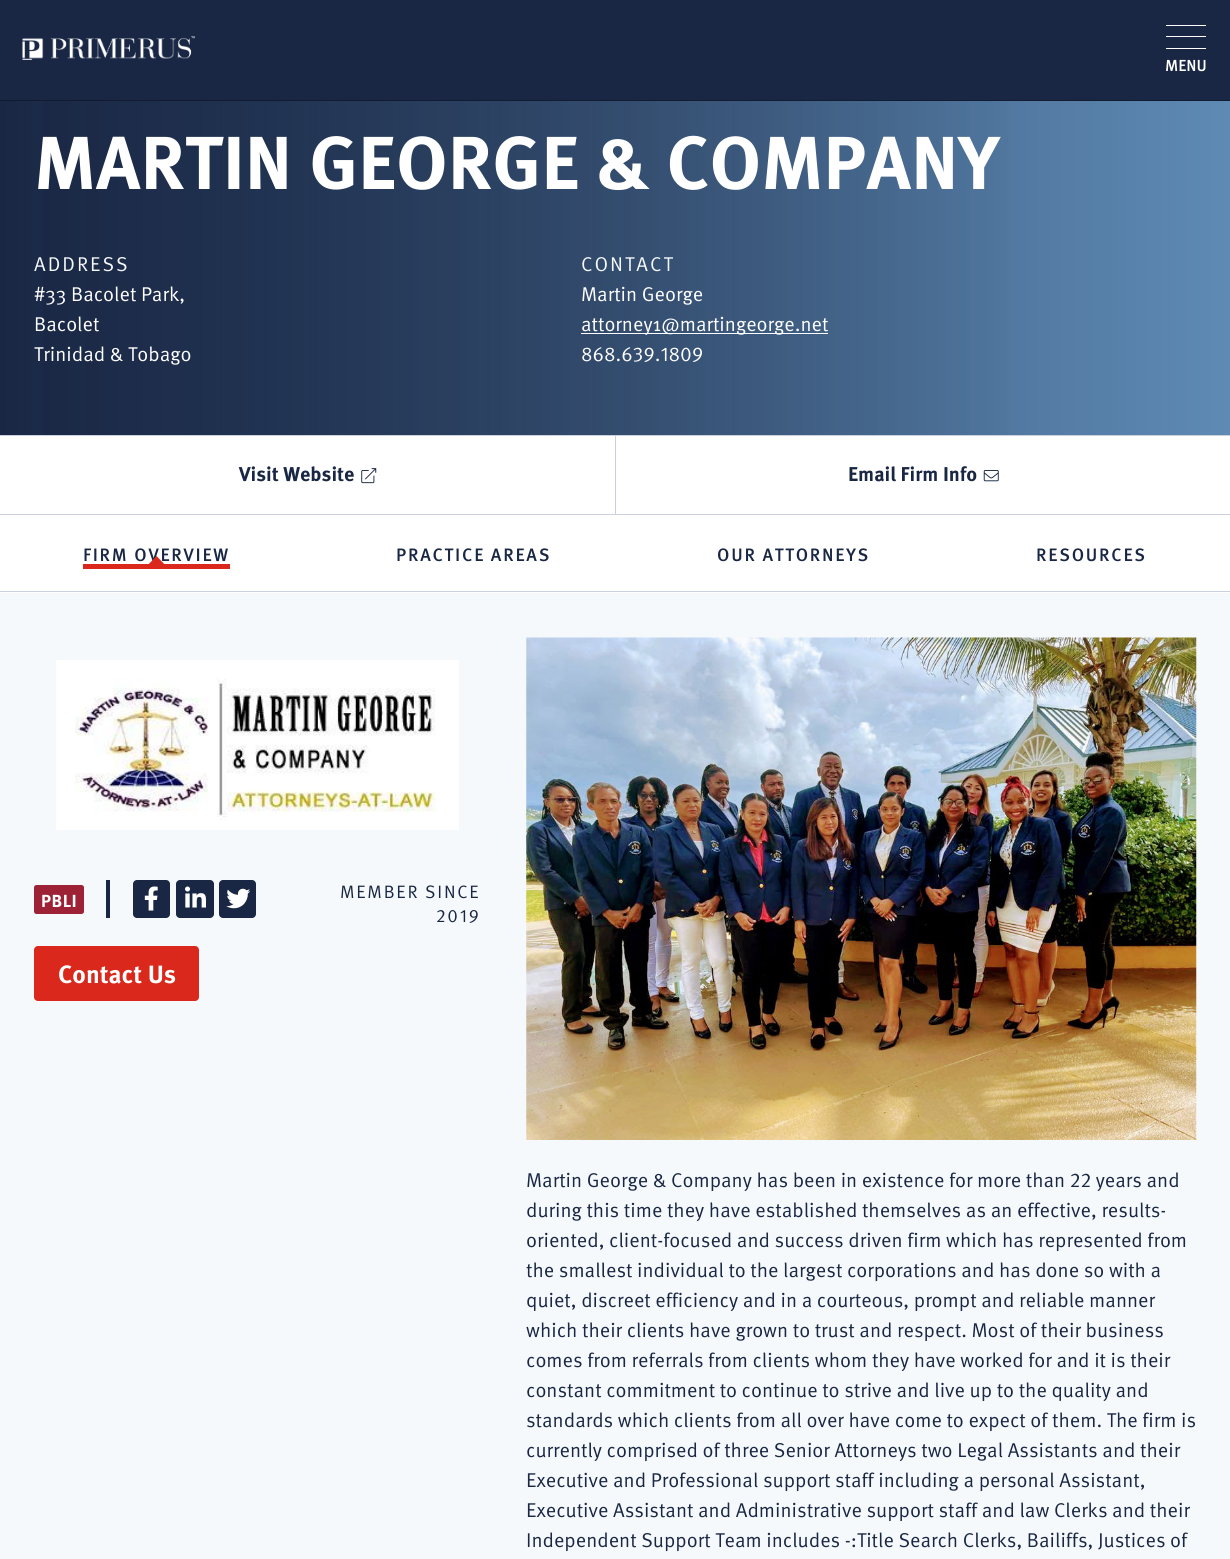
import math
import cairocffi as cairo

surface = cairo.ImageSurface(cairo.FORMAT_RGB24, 1230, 1559)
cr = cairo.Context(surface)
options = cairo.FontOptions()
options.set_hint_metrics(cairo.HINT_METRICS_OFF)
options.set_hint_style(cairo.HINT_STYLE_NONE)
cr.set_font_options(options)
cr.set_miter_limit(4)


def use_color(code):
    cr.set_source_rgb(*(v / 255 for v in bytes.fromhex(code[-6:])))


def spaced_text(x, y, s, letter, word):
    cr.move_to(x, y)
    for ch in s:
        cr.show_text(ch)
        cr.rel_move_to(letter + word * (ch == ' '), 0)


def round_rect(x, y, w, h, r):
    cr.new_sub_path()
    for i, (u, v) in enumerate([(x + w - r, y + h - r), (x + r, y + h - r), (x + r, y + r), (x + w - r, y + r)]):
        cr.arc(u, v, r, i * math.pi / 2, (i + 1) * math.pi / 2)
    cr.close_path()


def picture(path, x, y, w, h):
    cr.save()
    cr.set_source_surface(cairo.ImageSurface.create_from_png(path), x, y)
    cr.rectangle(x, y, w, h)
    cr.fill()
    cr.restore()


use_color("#f6f9fb")
cr.paint()
use_color("#192744")
cr.rectangle(0, 0, 1230, 100)
cr.fill()
use_color("#121c31")
cr.rectangle(0, 100, 1230, 1)
cr.fill()
picture("img1.png", 22, 35, 173, 25)
use_color("#ffffff")
cr.rectangle(1166, 25, 40, 1)
cr.fill()
cr.rectangle(1166, 36, 40, 1)
cr.fill()
cr.rectangle(1166, 48, 40, 1)
cr.fill()
cr.select_font_face("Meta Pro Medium")
cr.set_font_size(16)
cr.move_to(1165, 71)
cr.show_text("MENU")
gradient = cairo.LinearGradient(0, 251, 1230, 251)
gradient.add_color_stop_rgba(0, 0.098, 0.153, 0.267, 1)
gradient.add_color_stop_rgba(1, 0.369, 0.541, 0.706, 1)
cr.set_source(gradient)
cr.rectangle(0, 101, 1230, 334)
cr.fill()
gradient = cairo.LinearGradient(0, 251, 1230, 251)
gradient.add_color_stop_rgba(0, 0.098, 0.153, 0.267, 0.6)
gradient.add_color_stop_rgba(0.85, 0.098, 0.153, 0.267, 0)
cr.set_source(gradient)
cr.rectangle(43, 101, 965, 334)
cr.fill()
cr.select_font_face("Meta Pro", cairo.FONT_SLANT_NORMAL, cairo.FONT_WEIGHT_BOLD)
cr.set_font_size(75)
use_color("#ffffff")
cr.move_to(34, 189)
cr.show_text("MARTIN GEORGE & COMPANY")
cr.select_font_face("Meta Pro")
cr.set_font_size(20)
use_color("#f6f9fb")
spaced_text(34, 271, "ADDRESS", 2, 0)
use_color("#ffffff")
cr.move_to(34, 301)
cr.show_text("#33 Bacolet Park,")
cr.move_to(34, 331)
cr.show_text("Bacolet")
cr.move_to(34, 361)
cr.show_text("Trinidad & Tobago")
use_color("#f6f9fb")
spaced_text(581, 271, "CONTACT", 2, 0)
use_color("#ffffff")
cr.move_to(581, 301)
cr.show_text("Martin George")
cr.rectangle(581, 333, 247, 1)
cr.fill()
cr.move_to(581, 331)
cr.show_text("attorney1@martingeorge.net")
cr.select_font_face("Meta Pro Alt")
cr.move_to(581, 361)
cr.show_text("868.639.1809")
cr.rectangle(0, 436, 1230, 157)
cr.fill()
use_color("#cccfde")
cr.rectangle(0, 435, 1230, 1)
cr.fill()
cr.rectangle(0, 591, 1230, 1)
cr.fill()
cr.select_font_face("Meta Pro", cairo.FONT_SLANT_NORMAL, cairo.FONT_WEIGHT_BOLD)
use_color("#192744")
cr.move_to(239, 481)
cr.show_text("Visit Website")
picture("img2.png", 361, 468, 16, 16)
use_color("#cccfde")
cr.rectangle(615, 436, 1, 78)
cr.fill()
use_color("#192744")
cr.move_to(848, 481)
cr.show_text("Email Firm Info")
picture("img3.png", 983, 470, 16, 12)
use_color("#cccfde")
cr.rectangle(0, 514, 1230, 1)
cr.fill()
cr.select_font_face("Meta Pro Medium")
cr.set_font_size(18)
use_color("#192744")
spaced_text(83, 561, "FIRM OVERVIEW", 1.75, 0)
use_color("#da291c")
cr.new_path()
cr.move_to(144, 569)
cr.line_to(156.5, 556)
cr.line_to(169, 569)
cr.close_path()
cr.fill()
cr.rectangle(83, 564, 147, 5)
cr.fill()
use_color("#192744")
spaced_text(396, 561, "PRACTICE AREAS", 1.75, 0)
spaced_text(717, 561, "OUR ATTORNEYS", 1.75, 0)
spaced_text(1036, 561, "RESOURCES", 1.75, 0)
picture("img4.png", 56, 660, 403, 170)
use_color("#9d2235")
round_rect(34, 885, 50, 29, 2.5)
cr.fill()
cr.select_font_face("Meta Pro", cairo.FONT_SLANT_NORMAL, cairo.FONT_WEIGHT_BOLD)
cr.set_font_size(17.5)
use_color("#ffffff")
spaced_text(41, 907, "PBLI", 0.5, 0)
use_color("#192744")
cr.rectangle(106, 880, 4, 38)
cr.fill()
round_rect(133, 880, 37, 38, 4)
cr.fill()
picture("img5.png", 144, 886, 14, 25)
round_rect(176, 880, 38, 38, 4)
cr.fill()
picture("img6.png", 185, 886, 21, 22)
round_rect(219, 880, 37, 38, 4)
cr.fill()
picture("img7.png", 226, 888, 25, 21)
cr.select_font_face("Meta Pro")
cr.set_font_size(18)
spaced_text(340, 898, "MEMBER SINCE", 1.75, 0)
cr.select_font_face("Meta Pro Alt")
spaced_text(436, 922, "2019", 1.75, 0)
use_color("#da291c")
round_rect(34, 946, 165, 55, 4)
cr.fill()
cr.select_font_face("Meta Pro", cairo.FONT_SLANT_NORMAL, cairo.FONT_WEIGHT_BOLD)
cr.set_font_size(25)
use_color("#ffffff")
cr.move_to(58, 983)
cr.show_text("Contact Us")
picture("img8.png", 526, 637, 671, 503)
cr.select_font_face("Meta Pro Alt")
cr.set_font_size(20)
use_color("#192744")
cr.move_to(526, 1187)
cr.show_text("Martin George & Company has been in existence for more than 22 years and")
cr.select_font_face("Meta Pro")
cr.move_to(526, 1217)
cr.show_text("during this time they have established themselves as an effective, results-")
cr.move_to(526, 1247)
cr.show_text("oriented, client-focused and success driven firm which has represented from")
cr.move_to(526, 1277)
cr.show_text("the smallest individual to the largest corporations and has done so with a")
cr.move_to(526, 1307)
cr.show_text("quiet, discreet efficiency and in a courteous, prompt and reliable manner")
cr.move_to(526, 1337)
cr.show_text("which their clients have grown to trust and respect. Most of their business")
cr.move_to(526, 1367)
cr.show_text("comes from referrals from clients whom they have worked for and it is their")
cr.move_to(526, 1397)
cr.show_text("constant commitment to continue to strive and live up to the quality and")
cr.move_to(526, 1427)
cr.show_text("standards which clients from all over have come to expect of them. The firm is")
cr.move_to(526, 1457)
cr.show_text("currently comprised of three Senior Attorneys two Legal Assistants and their")
cr.move_to(526, 1487)
cr.show_text("Executive and Professional support staff including a personal Assistant,")
cr.move_to(526, 1517)
cr.show_text("Executive Assistant and Administrative support staff and law Clerks and their")
cr.move_to(526, 1547)
cr.show_text("Independent Support Team includes -:Title Search Clerks, Bailiffs, Justices of")
surface.write_to_png("result.png")
